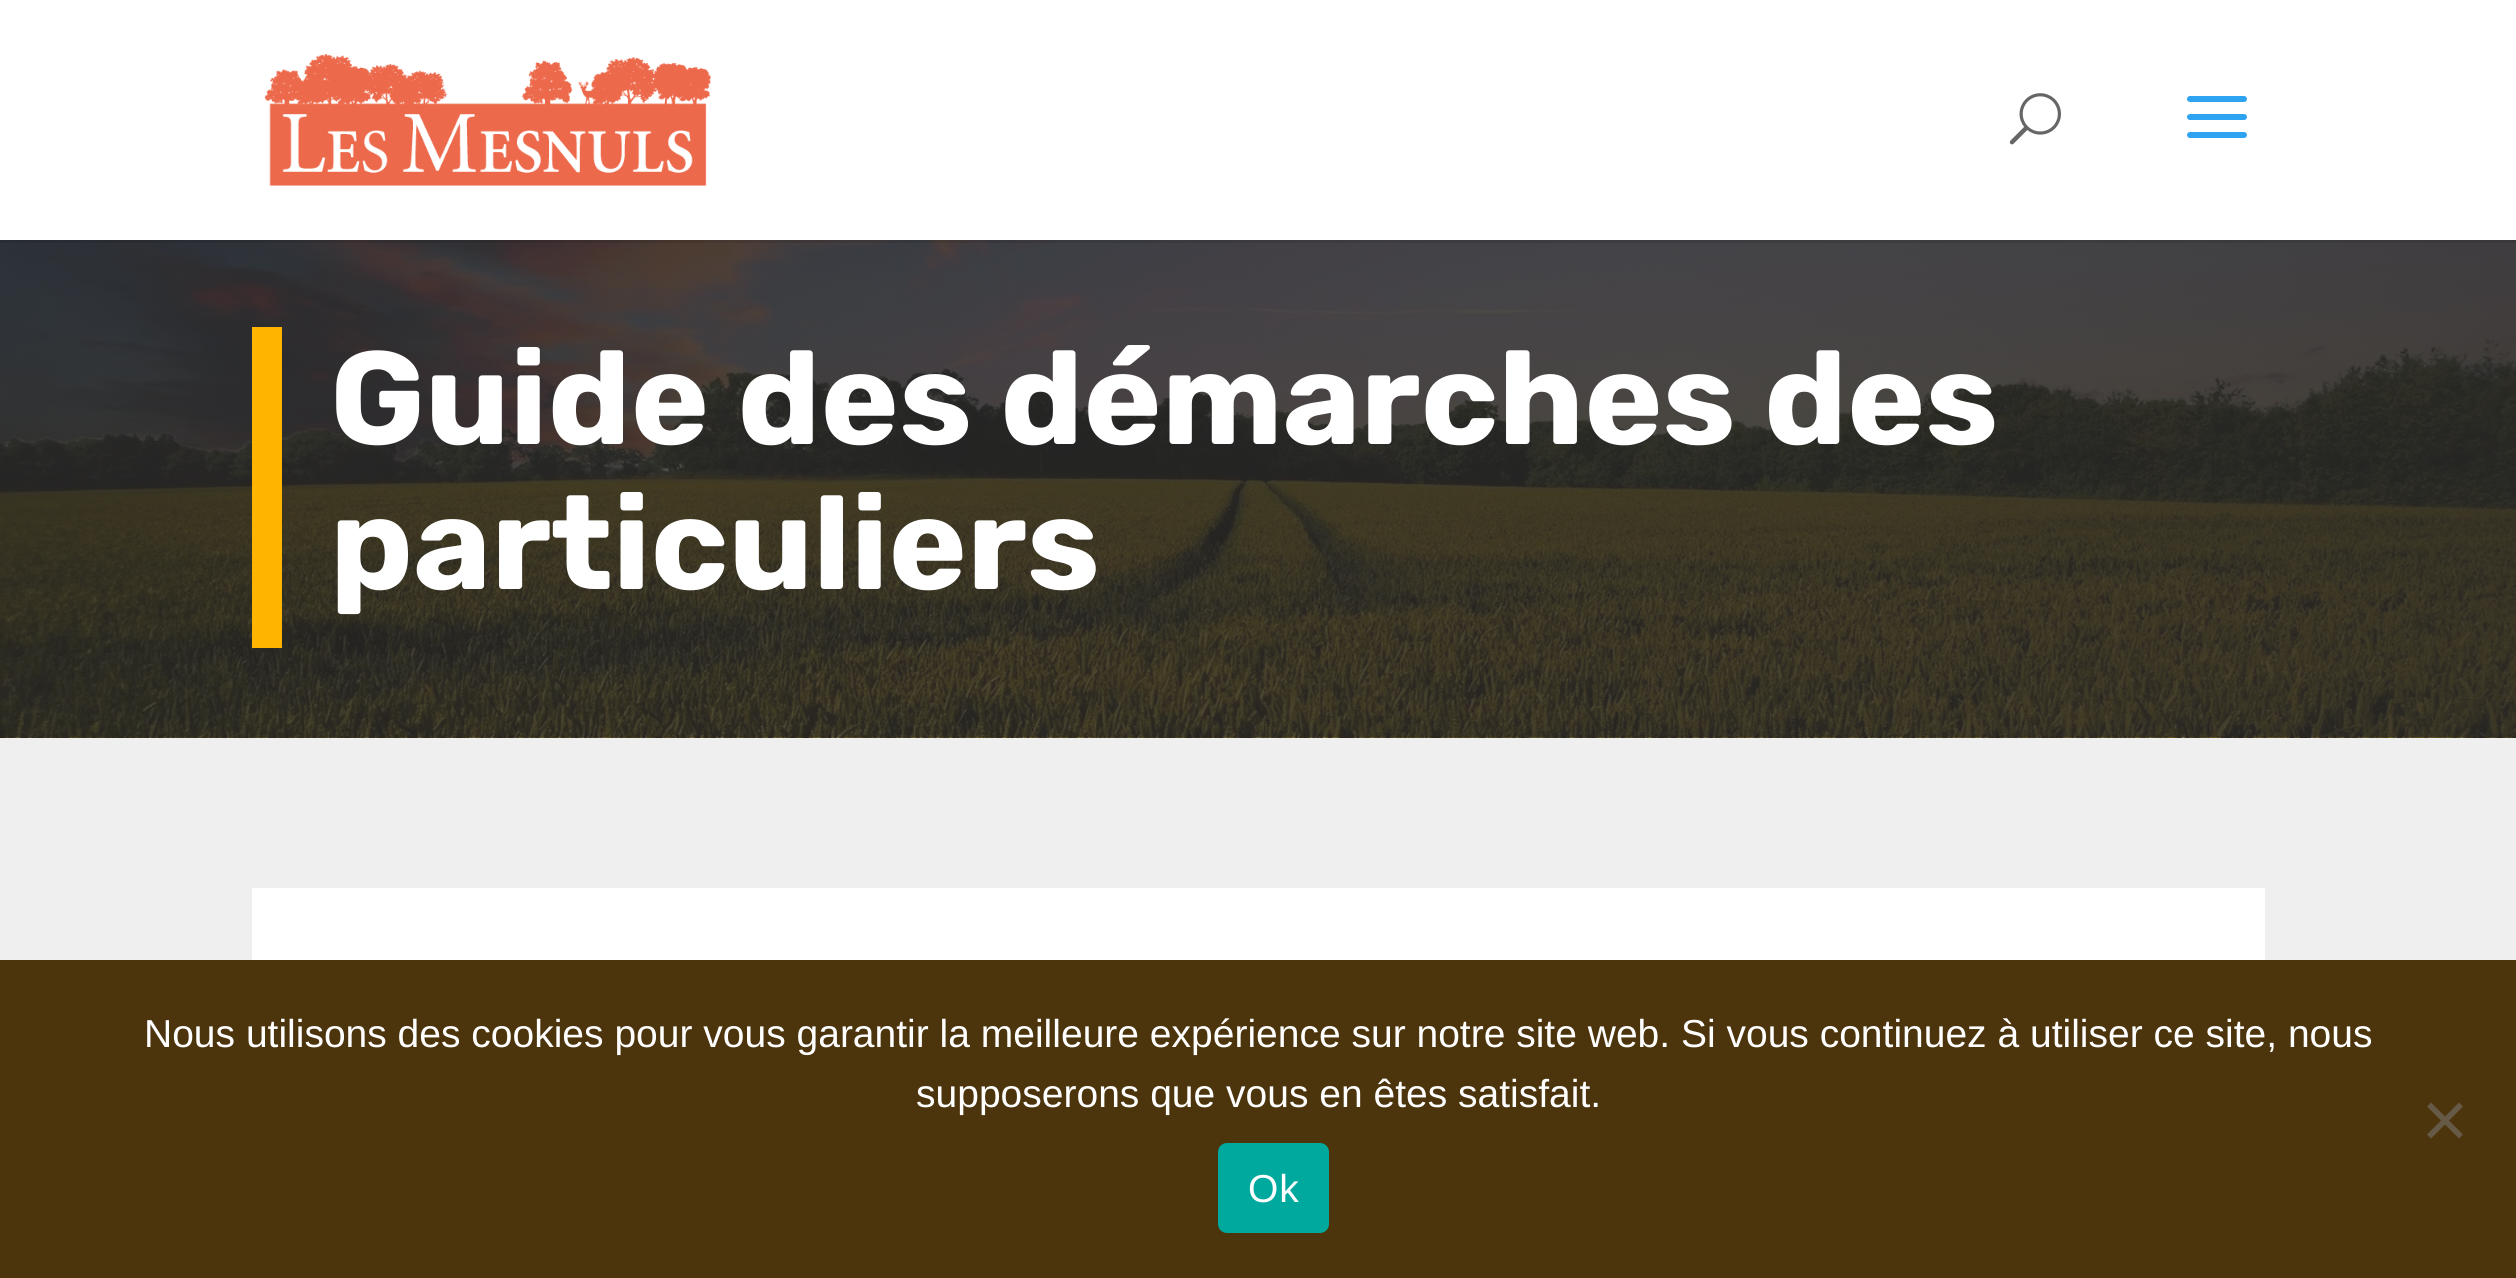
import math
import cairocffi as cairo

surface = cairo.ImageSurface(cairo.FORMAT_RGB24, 2516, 1278)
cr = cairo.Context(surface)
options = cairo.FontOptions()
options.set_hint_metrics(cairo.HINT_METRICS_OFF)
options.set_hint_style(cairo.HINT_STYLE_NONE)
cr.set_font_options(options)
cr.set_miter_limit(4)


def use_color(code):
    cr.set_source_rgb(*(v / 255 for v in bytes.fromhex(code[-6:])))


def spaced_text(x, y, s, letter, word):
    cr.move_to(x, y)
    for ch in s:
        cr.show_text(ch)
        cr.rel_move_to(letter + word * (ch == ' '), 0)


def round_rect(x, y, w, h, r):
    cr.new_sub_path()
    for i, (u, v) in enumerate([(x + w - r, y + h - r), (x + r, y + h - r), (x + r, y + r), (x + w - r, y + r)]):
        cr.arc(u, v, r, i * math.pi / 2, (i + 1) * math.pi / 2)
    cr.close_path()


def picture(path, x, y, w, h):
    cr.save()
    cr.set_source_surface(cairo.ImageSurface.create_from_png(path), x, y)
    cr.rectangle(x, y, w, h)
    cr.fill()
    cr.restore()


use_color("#ffffff")
cr.paint()
picture("img4.png", 0, 240, 2516, 498)
cr.set_source_rgba(0, 0, 0, 0.1)
cr.rectangle(0, 240, 2516, 3)
cr.fill()
picture("img1.png", 264, 54, 447, 132)
picture("img2.png", 2009, 93, 52, 52)
picture("img3.png", 2187, 96, 60, 42)
use_color("#ffb400")
cr.rectangle(252, 327, 30, 321)
cr.fill()
cr.select_font_face("Rubik Light")
cr.set_font_size(132)
use_color("#ffffff")
cr.move_to(330, 444)
cr.show_text("Guide des démarches des")
cr.move_to(330, 589)
cr.show_text("particuliers")
use_color("#efefef")
cr.rectangle(0, 738, 2516, 222)
cr.fill()
use_color("#ffffff")
cr.rectangle(252, 888, 2013, 72)
cr.fill()
use_color("#4c340c")
cr.rectangle(0, 960, 2516, 318)
cr.fill()
cr.select_font_face("Liberation Sans")
cr.set_font_size(39)
use_color("#ffffff")
cr.move_to(144, 1047)
cr.show_text("Nous utilisons des cookies pour vous garantir la meilleure expérience sur notre site web. Si vous continuez à utiliser ce site, nous")
cr.move_to(916, 1107)
cr.show_text("supposerons que vous en êtes satisfait.")
use_color("#665a46")
cr.new_path()
cr.move_to(2459, 1102.5)
cr.line_to(2463, 1106.5)
cr.line_to(2431, 1138.5)
cr.line_to(2427, 1134.5)
cr.close_path()
cr.fill()
cr.new_path()
cr.move_to(2427, 1106.5)
cr.line_to(2431, 1102.5)
cr.line_to(2463, 1134.5)
cr.line_to(2459, 1138.5)
cr.close_path()
cr.fill()
use_color("#00a99d")
round_rect(1218, 1143, 111, 90, 9)
cr.fill()
use_color("#ffffff")
spaced_text(1248, 1202, "Ok", 1, 0)
surface.write_to_png("result.png")
